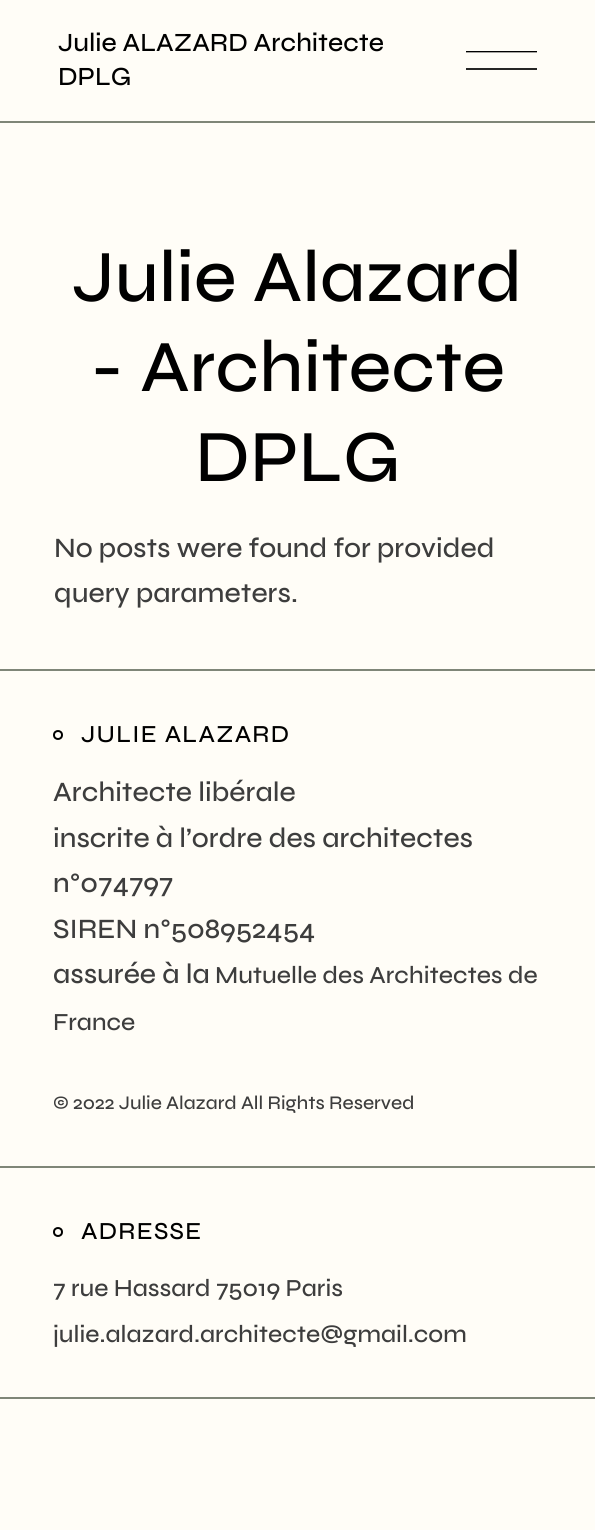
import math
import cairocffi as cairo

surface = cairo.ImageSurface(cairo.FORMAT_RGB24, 595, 1530)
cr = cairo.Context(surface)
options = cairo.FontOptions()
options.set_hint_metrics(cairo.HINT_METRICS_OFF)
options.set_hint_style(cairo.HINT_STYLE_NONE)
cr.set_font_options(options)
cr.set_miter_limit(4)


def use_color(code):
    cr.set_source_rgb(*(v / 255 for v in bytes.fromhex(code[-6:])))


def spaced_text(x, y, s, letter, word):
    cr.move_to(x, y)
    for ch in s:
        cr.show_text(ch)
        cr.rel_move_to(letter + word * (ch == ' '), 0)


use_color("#fffdf7")
cr.paint()
use_color("#7f8678")
cr.rectangle(0, 121, 595, 2)
cr.fill()
cr.select_font_face("Syne Medium")
cr.set_font_size(26.25)
use_color("#000000")
cr.move_to(58, 51)
cr.show_text("Julie ALAZARD Architecte")
cr.move_to(58, 85)
cr.show_text("DPLG")
cr.save()
cr.rectangle(466, 51, 71, 19)
cr.clip()
cr.new_path()
cr.move_to(465.5, 51.5)
cr.line_to(537.5, 51.5)
cr.set_line_width(1.7)
cr.stroke()
cr.restore()
use_color("#262625")
cr.rectangle(466, 68, 71, 2)
cr.fill()
cr.set_font_size(73.5)
use_color("#000000")
cr.move_to(72, 301)
cr.show_text("Julie Alazard")
cr.move_to(90, 391)
cr.show_text("- Architecte")
cr.move_to(195, 481)
cr.show_text("DPLG")
cr.set_font_size(28)
use_color("#3d3d3d")
cr.move_to(54, 557)
cr.show_text("No posts were found for provided")
cr.move_to(54, 602)
cr.show_text("query parameters.")
use_color("#7f8678")
cr.rectangle(0, 669, 595, 2)
cr.fill()
cr.rectangle(0, 1166, 595, 2)
cr.fill()
cr.arc(58, 735, 4, 0, 2 * math.pi)
use_color("#000000")
cr.stroke()
cr.set_font_size(24.5)
spaced_text(81, 742, "JULIE ALAZARD", 1.25, 0)
cr.set_font_size(28)
use_color("#3d3d3d")
cr.move_to(53, 801)
cr.show_text("Architecte libérale")
cr.move_to(53, 847)
cr.show_text("inscrite à l’ordre des architectes")
cr.move_to(53, 892)
cr.show_text("n°074797")
cr.move_to(53, 938)
cr.show_text("SIREN n°508952454")
cr.move_to(53, 983)
cr.show_text("assurée à la")
cr.set_font_size(24.5)
cr.move_to(215, 983)
cr.show_text("Mutuelle des Architectes de")
cr.move_to(53, 1030)
cr.show_text("France")
cr.set_font_size(19.25)
cr.move_to(53, 1109)
cr.show_text("© 2022 Julie Alazard All Rights Reserved")
use_color("#7f8678")
cr.rectangle(0, 1397, 595, 2)
cr.fill()
cr.arc(58, 1232, 4, 0, 2 * math.pi)
use_color("#000000")
cr.stroke()
cr.set_font_size(24.5)
spaced_text(81, 1239, "ADRESSE", 1.25, 0)
use_color("#3d3d3d")
cr.move_to(53, 1296)
cr.show_text("7 rue Hassard 75019 Paris")
cr.move_to(53, 1342)
cr.show_text("julie.alazard.architecte@gmail.com")
surface.write_to_png("result.png")
